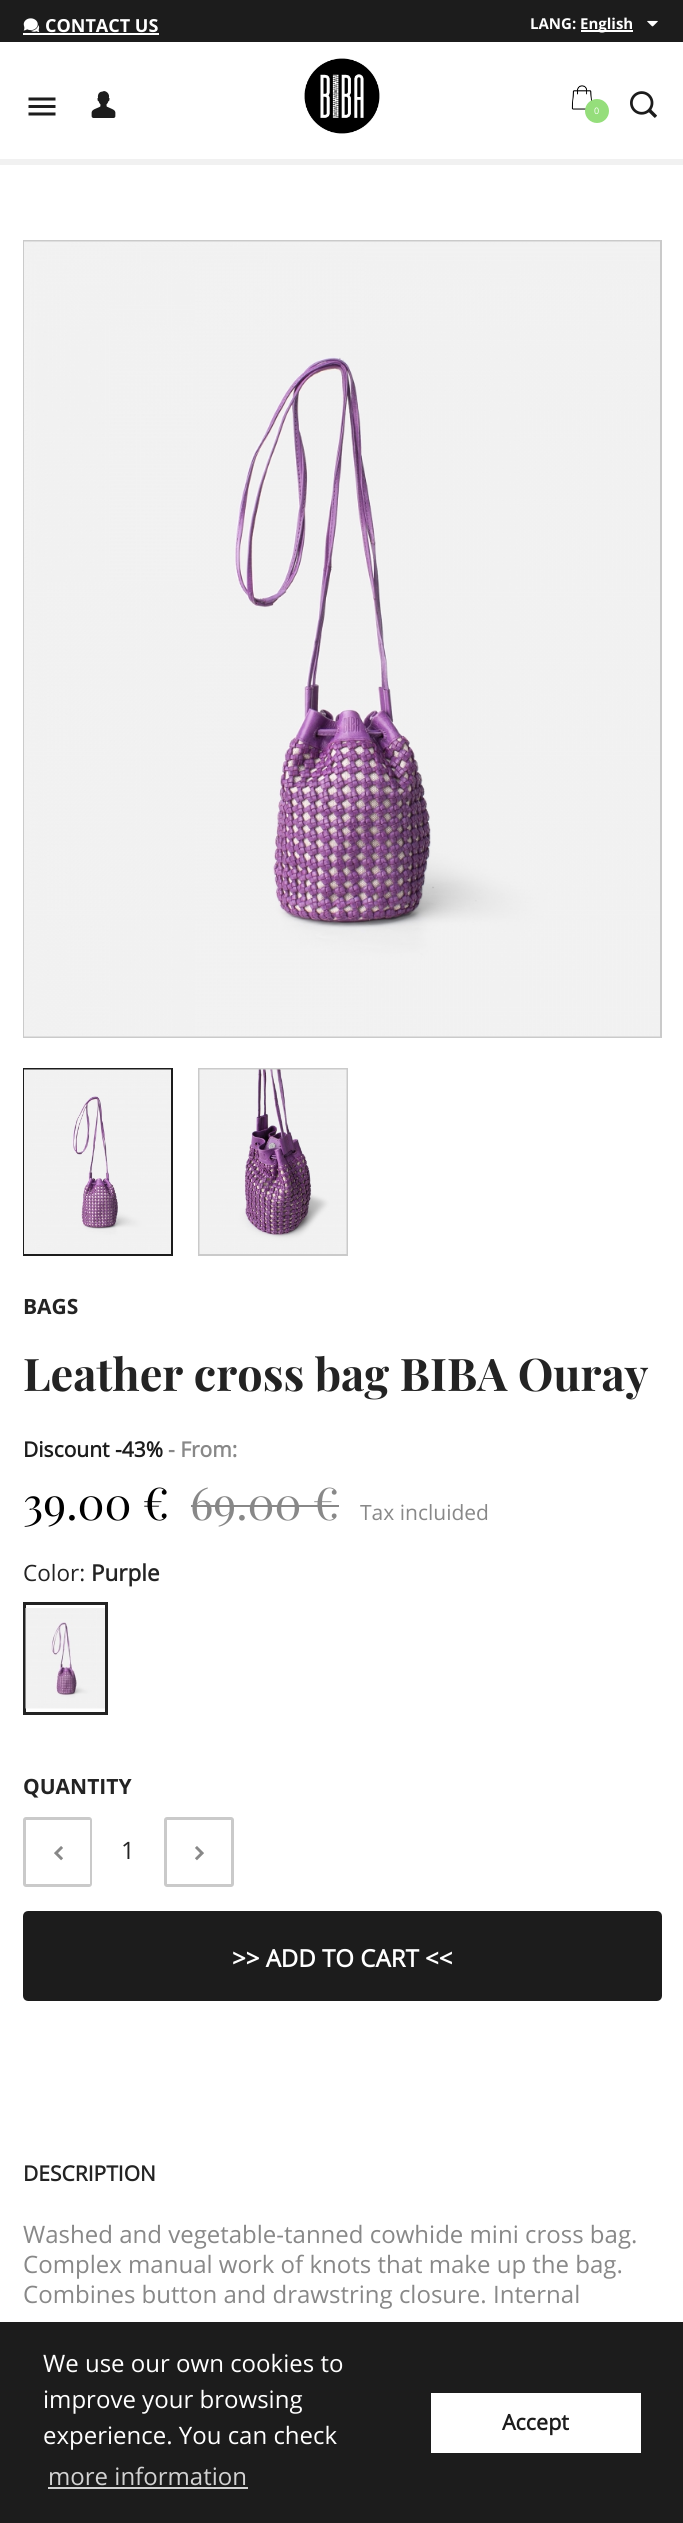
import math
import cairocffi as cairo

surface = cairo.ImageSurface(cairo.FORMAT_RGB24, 683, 2523)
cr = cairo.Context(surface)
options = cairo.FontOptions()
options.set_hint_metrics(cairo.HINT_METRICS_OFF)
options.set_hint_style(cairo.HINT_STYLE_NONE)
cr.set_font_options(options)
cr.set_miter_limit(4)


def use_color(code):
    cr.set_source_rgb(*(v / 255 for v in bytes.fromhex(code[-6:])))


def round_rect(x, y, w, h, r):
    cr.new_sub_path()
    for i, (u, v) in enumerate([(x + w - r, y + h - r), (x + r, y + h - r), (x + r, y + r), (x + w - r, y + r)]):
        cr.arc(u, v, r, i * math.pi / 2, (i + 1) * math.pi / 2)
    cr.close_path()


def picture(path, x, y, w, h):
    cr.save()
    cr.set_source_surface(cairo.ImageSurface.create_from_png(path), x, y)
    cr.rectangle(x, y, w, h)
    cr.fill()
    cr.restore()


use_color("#f1f1f1")
cr.paint()
use_color("#1c1c1c")
cr.rectangle(0, 0, 683, 42)
cr.fill()
picture("img1.png", 23, 18, 17, 14)
cr.select_font_face("Open Sans", cairo.FONT_SLANT_NORMAL, cairo.FONT_WEIGHT_BOLD)
cr.set_font_size(18)
use_color("#ffffff")
cr.move_to(45, 32)
cr.show_text("CONTACT US")
cr.rectangle(23, 33, 136, 2)
cr.fill()
cr.set_font_size(15)
cr.move_to(530, 29)
cr.show_text("LANG:")
cr.rectangle(581, 30, 52, 2)
cr.fill()
cr.move_to(580, 29)
cr.show_text("English")
picture("img2.png", 647, 20, 11, 7)
cr.rectangle(0, 42, 683, 117)
cr.fill()
picture("img3.png", 28, 97, 28, 19)
picture("img4.png", 91, 91, 25, 27)
picture("img5.png", 304, 58, 76, 76)
picture("img6.png", 571, 85, 21, 25)
use_color("#95de7b")
cr.arc(597, 111, 12, 0, 2 * math.pi)
cr.fill()
cr.select_font_face("Open Sans")
cr.set_font_size(9)
use_color("#ffffff")
cr.move_to(594, 114)
cr.show_text("0")
picture("img7.png", 630, 91, 27, 27)
cr.rectangle(0, 165, 683, 2157)
cr.fill()
cr.rectangle(24, 241, 637, 796)
use_color("#cacaca")
cr.stroke()
picture("img8.png", 24, 241, 636, 796)
cr.rectangle(24, 1069, 148, 186)
use_color("#1c1c1c")
cr.stroke()
cr.rectangle(199, 1069, 148, 186)
use_color("#cacaca")
cr.stroke()
picture("img9.png", 24, 1069, 147, 185)
picture("img10.png", 199, 1069, 148, 185)
cr.select_font_face("Open Sans", cairo.FONT_SLANT_NORMAL, cairo.FONT_WEIGHT_BOLD)
cr.set_font_size(21)
use_color("#232323")
cr.move_to(23, 1314)
cr.show_text("BAGS")
cr.select_font_face("Playfair Display", cairo.FONT_SLANT_NORMAL, cairo.FONT_WEIGHT_BOLD)
cr.set_font_size(45)
cr.move_to(23, 1391)
cr.show_text("Leather cross bag BIBA Ouray")
cr.select_font_face("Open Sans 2", cairo.FONT_SLANT_NORMAL, cairo.FONT_WEIGHT_BOLD)
cr.set_font_size(21)
use_color("#1c1c1c")
cr.move_to(23, 1457)
cr.show_text("Discount -43%")
use_color("#888888")
cr.move_to(168, 1457)
cr.show_text("- From:")
cr.select_font_face("Playfair Display")
cr.set_font_size(45)
use_color("#000000")
cr.move_to(23, 1520)
cr.show_text("39.00 €")
use_color("#888888")
cr.move_to(190, 1520)
cr.show_text("69.00 €")
cr.rectangle(191, 1505, 148, 2)
cr.fill()
cr.select_font_face("Open Sans")
cr.set_font_size(21)
cr.move_to(360, 1520)
cr.show_text("Tax incluided")
cr.set_font_size(22.5)
use_color("#232323")
cr.move_to(23, 1581)
cr.show_text("Color:")
cr.select_font_face("Open Sans 2", cairo.FONT_SLANT_NORMAL, cairo.FONT_WEIGHT_BOLD)
cr.move_to(91, 1581)
cr.show_text("Purple")
cr.rectangle(24.5, 1603.5, 82, 110)
cr.set_line_width(3)
cr.stroke()
picture("img11.png", 25, 1608, 80, 101)
cr.select_font_face("Open Sans", cairo.FONT_SLANT_NORMAL, cairo.FONT_WEIGHT_BOLD)
cr.set_font_size(21)
cr.move_to(23, 1794)
cr.show_text("QUANTITY")
round_rect(24.5, 1818.5, 66, 67, 1.5)
use_color("#cacaca")
cr.stroke()
use_color("#ffffff")
cr.rectangle(89, 1820, 1, 64)
cr.fill()
picture("img12.png", 54, 1846, 9, 15)
cr.select_font_face("Open Sans")
cr.set_font_size(24)
use_color("#232323")
cr.move_to(121, 1859)
cr.show_text("1")
round_rect(165.5, 1818.5, 67, 67, 1.5)
use_color("#cacaca")
cr.stroke()
picture("img13.png", 195, 1846, 9, 15)
use_color("#1c1c1c")
round_rect(24.5, 1912.5, 636, 87, 3.5)
cr.fill_preserve()
cr.stroke()
cr.select_font_face("Open Sans 2", cairo.FONT_SLANT_NORMAL, cairo.FONT_WEIGHT_BOLD)
use_color("#ffffff")
cr.move_to(232, 1967)
cr.show_text(">> ADD TO CART <<")
cr.set_font_size(21)
use_color("#232323")
cr.move_to(23, 2181)
cr.show_text("DESCRIPTION")
cr.select_font_face("Open Sans")
cr.set_font_size(24)
use_color("#888888")
cr.move_to(23, 2243)
cr.show_text("Washed and vegetable-tanned cowhide mini cross bag.")
cr.move_to(23, 2273)
cr.show_text("Complex manual work of knots that make up the bag.")
cr.move_to(23, 2303)
cr.show_text("Combines button and drawstring closure. Internal")
use_color("#1c1c1c")
cr.rectangle(0, 2322, 683, 201)
cr.fill()
use_color("#ffffff")
cr.move_to(43, 2372)
cr.show_text("We use our own cookies to")
cr.move_to(43, 2408)
cr.show_text("improve your browsing")
cr.move_to(43, 2444)
cr.show_text("experience. You can check")
use_color("#d2d2d2")
cr.move_to(48, 2485)
cr.show_text("more information")
cr.rectangle(48, 2487, 200, 2)
cr.fill()
use_color("#ffffff")
cr.rectangle(431, 2393, 210, 60)
cr.fill()
cr.select_font_face("Open Sans 2", cairo.FONT_SLANT_NORMAL, cairo.FONT_WEIGHT_BOLD)
cr.set_font_size(21.5)
use_color("#1c1c1c")
cr.move_to(502, 2430)
cr.show_text("Accept")
surface.write_to_png("result.png")
